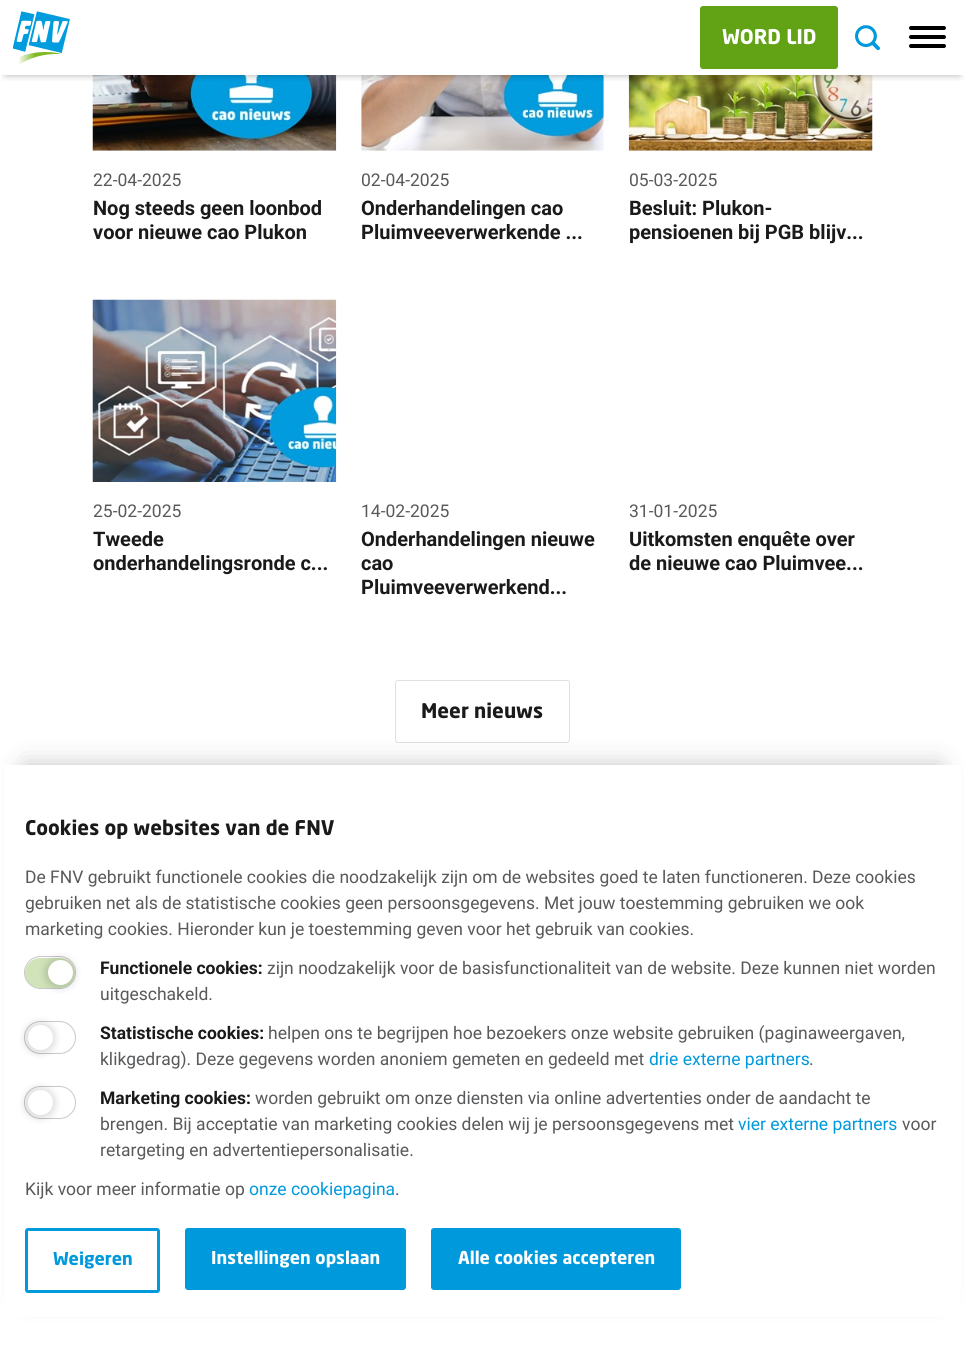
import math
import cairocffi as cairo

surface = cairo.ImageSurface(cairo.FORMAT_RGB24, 965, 1346)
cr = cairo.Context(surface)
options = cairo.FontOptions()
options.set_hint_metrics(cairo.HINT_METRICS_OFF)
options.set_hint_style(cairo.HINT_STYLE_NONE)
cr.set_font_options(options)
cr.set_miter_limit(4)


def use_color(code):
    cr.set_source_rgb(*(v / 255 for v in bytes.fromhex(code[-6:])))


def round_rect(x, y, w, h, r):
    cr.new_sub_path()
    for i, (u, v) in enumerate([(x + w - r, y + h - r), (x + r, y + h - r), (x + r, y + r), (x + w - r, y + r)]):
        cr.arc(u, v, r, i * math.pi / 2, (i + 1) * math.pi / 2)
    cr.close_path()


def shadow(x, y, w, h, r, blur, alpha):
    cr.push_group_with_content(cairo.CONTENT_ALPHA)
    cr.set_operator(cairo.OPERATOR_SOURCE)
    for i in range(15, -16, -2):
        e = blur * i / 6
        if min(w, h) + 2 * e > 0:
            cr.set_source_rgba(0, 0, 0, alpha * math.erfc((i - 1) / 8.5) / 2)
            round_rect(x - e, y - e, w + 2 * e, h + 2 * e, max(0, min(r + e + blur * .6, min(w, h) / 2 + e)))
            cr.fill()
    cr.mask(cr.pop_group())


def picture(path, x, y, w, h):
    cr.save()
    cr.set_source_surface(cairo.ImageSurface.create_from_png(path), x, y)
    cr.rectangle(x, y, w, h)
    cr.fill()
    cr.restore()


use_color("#ffffff")
cr.paint()
picture("img3.png", 92, 75, 245, 76)
picture("img4.png", 361, 75, 243, 76)
picture("img5.png", 628, 75, 245, 76)
cr.save()
cr.rectangle(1, 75, 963, 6)
cr.clip()
use_color("#000000")
shadow(6, 10, 953, 63, 0, 4.5, 0.5)
cr.restore()
picture("img1.png", 13, 11, 57, 53)
use_color("#62a316")
round_rect(700.5, 6.5, 137, 62, 2.5)
cr.fill_preserve()
cr.set_line_width(1)
cr.stroke()
cr.select_font_face("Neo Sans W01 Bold", cairo.FONT_SLANT_NORMAL, cairo.FONT_WEIGHT_BOLD)
cr.set_font_size(20)
use_color("#ffffff")
cr.move_to(722, 44)
cr.show_text("WORD LID")
picture("img2.png", 855, 25, 25, 26)
use_color("#000000")
round_rect(909, 35, 37, 4, 2)
cr.fill()
round_rect(909, 26, 37, 4, 2)
cr.fill()
round_rect(909, 44, 37, 4, 2)
cr.fill()
cr.select_font_face("Roboto")
cr.set_font_size(17.5)
use_color("#58595b")
cr.move_to(93, 186)
cr.show_text("22-04-2025")
cr.select_font_face("Roboto", cairo.FONT_SLANT_NORMAL, cairo.FONT_WEIGHT_BOLD)
cr.set_font_size(20)
use_color("#1a1a1a")
cr.move_to(93, 215)
cr.show_text("Nog steeds geen loonbod")
cr.move_to(93, 239)
cr.show_text("voor nieuwe cao Plukon")
cr.select_font_face("Roboto")
cr.set_font_size(17.5)
use_color("#58595b")
cr.move_to(361, 186)
cr.show_text("02-04-2025")
cr.select_font_face("Roboto", cairo.FONT_SLANT_NORMAL, cairo.FONT_WEIGHT_BOLD)
cr.set_font_size(20)
use_color("#1a1a1a")
cr.move_to(361, 215)
cr.show_text("Onderhandelingen cao")
cr.move_to(361, 239)
cr.show_text("Pluimveeverwerkende ...")
cr.select_font_face("Roboto")
cr.set_font_size(17.5)
use_color("#58595b")
cr.move_to(629, 186)
cr.show_text("05-03-2025")
cr.select_font_face("Roboto", cairo.FONT_SLANT_NORMAL, cairo.FONT_WEIGHT_BOLD)
cr.set_font_size(20)
use_color("#1a1a1a")
cr.move_to(629, 215)
cr.show_text("Besluit: Plukon-")
cr.move_to(629, 239)
cr.show_text("pensioenen bij PGB blijv...")
picture("img6.png", 92, 299, 245, 183)
cr.select_font_face("Roboto")
cr.set_font_size(17.5)
use_color("#58595b")
cr.move_to(93, 517)
cr.show_text("25-02-2025")
cr.select_font_face("Roboto", cairo.FONT_SLANT_NORMAL, cairo.FONT_WEIGHT_BOLD)
cr.set_font_size(20)
use_color("#1a1a1a")
cr.move_to(93, 546)
cr.show_text("Tweede")
cr.move_to(93, 570)
cr.show_text("onderhandelingsronde c...")
cr.select_font_face("Roboto")
cr.set_font_size(17.5)
use_color("#58595b")
cr.move_to(361, 517)
cr.show_text("14-02-2025")
cr.select_font_face("Roboto", cairo.FONT_SLANT_NORMAL, cairo.FONT_WEIGHT_BOLD)
cr.set_font_size(20)
use_color("#1a1a1a")
cr.move_to(361, 546)
cr.show_text("Onderhandelingen nieuwe")
cr.move_to(361, 570)
cr.show_text("cao")
cr.move_to(361, 594)
cr.show_text("Pluimveeverwerkend...")
cr.select_font_face("Roboto")
cr.set_font_size(17.5)
use_color("#58595b")
cr.move_to(629, 517)
cr.show_text("31-01-2025")
cr.select_font_face("Roboto", cairo.FONT_SLANT_NORMAL, cairo.FONT_WEIGHT_BOLD)
cr.set_font_size(20)
use_color("#1a1a1a")
cr.move_to(629, 546)
cr.show_text("Uitkomsten enquête over")
cr.move_to(629, 570)
cr.show_text("de nieuwe cao Pluimvee...")
round_rect(395.5, 680.5, 174, 62, 2.5)
use_color("#dde2e6")
cr.stroke()
cr.select_font_face("Neo Sans W01 Bold", cairo.FONT_SLANT_NORMAL, cairo.FONT_WEIGHT_BOLD)
use_color("#1a1a1a")
cr.move_to(421, 718)
cr.show_text("Meer nieuws")
use_color("#1a1a1a")
shadow(25, 765, 915, 531, 0, 12.5, 0.25)
use_color("#ffffff")
cr.rectangle(4, 765, 957, 552)
cr.fill()
use_color("#1a1a1a")
cr.move_to(25, 835)
cr.show_text("Cookies op websites van de FNV")
cr.select_font_face("Roboto")
cr.set_font_size(17.5)
use_color("#58595b")
cr.move_to(25, 883)
cr.show_text("De FNV gebruikt functionele cookies die noodzakelijk zijn om de websites goed te laten functioneren. Deze cookies")
cr.move_to(25, 909)
cr.show_text("gebruiken net als de statistische cookies geen persoonsgegevens. Met jouw toestemming gebruiken we ook")
cr.move_to(25, 935)
cr.show_text("marketing cookies. Hieronder kun je toestemming geven voor het gebruik van cookies.")
use_color("#d0e3b9")
round_rect(25, 958, 50, 30, 15)
cr.fill()
round_rect(24.5, 956.5, 51, 32, 16)
use_color("#c8c8c8")
cr.stroke()
use_color("#000000")
shadow(45, 958, 30, 30, 15, 4, 0.15)
use_color("#ffffff")
cr.arc(60.5, 972.5, 12.5, 0, 2 * math.pi)
cr.fill()
cr.select_font_face("Roboto", cairo.FONT_SLANT_NORMAL, cairo.FONT_WEIGHT_BOLD)
use_color("#1a1a1a")
cr.move_to(100, 974)
cr.show_text("Functionele cookies:")
cr.select_font_face("Roboto")
use_color("#58595b")
cr.move_to(267, 974)
cr.show_text("zijn noodzakelijk voor de basisfunctionaliteit van de website. Deze kunnen niet worden")
cr.move_to(100, 1000)
cr.show_text("uitgeschakeld.")
round_rect(24.5, 1021.5, 51, 32, 16)
use_color("#c8c8c8")
cr.stroke()
use_color("#000000")
shadow(25, 1023, 30, 30, 15, 4, 0.15)
use_color("#ffffff")
cr.arc(40.5, 1037.5, 12.5, 0, 2 * math.pi)
cr.fill()
cr.select_font_face("Roboto", cairo.FONT_SLANT_NORMAL, cairo.FONT_WEIGHT_BOLD)
use_color("#1a1a1a")
cr.move_to(100, 1039)
cr.show_text("Statistische cookies:")
cr.select_font_face("Roboto")
use_color("#58595b")
cr.move_to(268, 1039)
cr.show_text("helpen ons te begrijpen hoe bezoekers onze website gebruiken (paginaweergaven,")
cr.move_to(100, 1065)
cr.show_text("klikgedrag). Deze gegevens worden anoniem gemeten en gedeeld met")
use_color("#0099dc")
cr.move_to(649, 1065)
cr.show_text("drie externe partners")
use_color("#58595b")
cr.move_to(809, 1065)
cr.show_text(".")
round_rect(24.5, 1086.5, 51, 32, 16)
use_color("#c8c8c8")
cr.stroke()
use_color("#000000")
shadow(25, 1088, 30, 30, 15, 4, 0.15)
use_color("#ffffff")
cr.arc(40.5, 1102.5, 12.5, 0, 2 * math.pi)
cr.fill()
cr.select_font_face("Roboto", cairo.FONT_SLANT_NORMAL, cairo.FONT_WEIGHT_BOLD)
use_color("#1a1a1a")
cr.move_to(100, 1104)
cr.show_text("Marketing cookies:")
cr.select_font_face("Roboto")
use_color("#58595b")
cr.move_to(255, 1104)
cr.show_text("worden gebruikt om onze diensten via online advertenties onder de aandacht te")
cr.move_to(100, 1130)
cr.show_text("brengen. Bij acceptatie van marketing cookies delen wij je persoonsgegevens met")
use_color("#0099dc")
cr.move_to(738, 1130)
cr.show_text("vier externe partners")
use_color("#58595b")
cr.move_to(902, 1130)
cr.show_text("voor")
cr.move_to(100, 1156)
cr.show_text("retargeting en advertentiepersonalisatie.")
cr.move_to(25, 1195)
cr.show_text("Kijk voor meer informatie op")
use_color("#0099dc")
cr.move_to(249, 1195)
cr.show_text("onze cookiepagina")
use_color("#58595b")
cr.move_to(395, 1195)
cr.show_text(".")
round_rect(26.5, 1229.5, 132, 62, 1.5)
use_color("#0099dc")
cr.set_line_width(3)
cr.stroke()
cr.select_font_face("Neo Sans W01 Bold", cairo.FONT_SLANT_NORMAL, cairo.FONT_WEIGHT_BOLD)
cr.move_to(53, 1265)
cr.show_text("Weigeren")
round_rect(185.5, 1228.5, 220, 61, 2.5)
cr.fill_preserve()
cr.set_line_width(1)
cr.stroke()
use_color("#ffffff")
cr.move_to(211, 1264)
cr.show_text("Instellingen opslaan")
use_color("#0099dc")
round_rect(431.5, 1228.5, 249, 61, 2.5)
cr.fill_preserve()
cr.stroke()
use_color("#ffffff")
cr.move_to(458, 1264)
cr.show_text("Alle cookies accepteren")
surface.write_to_png("result.png")
